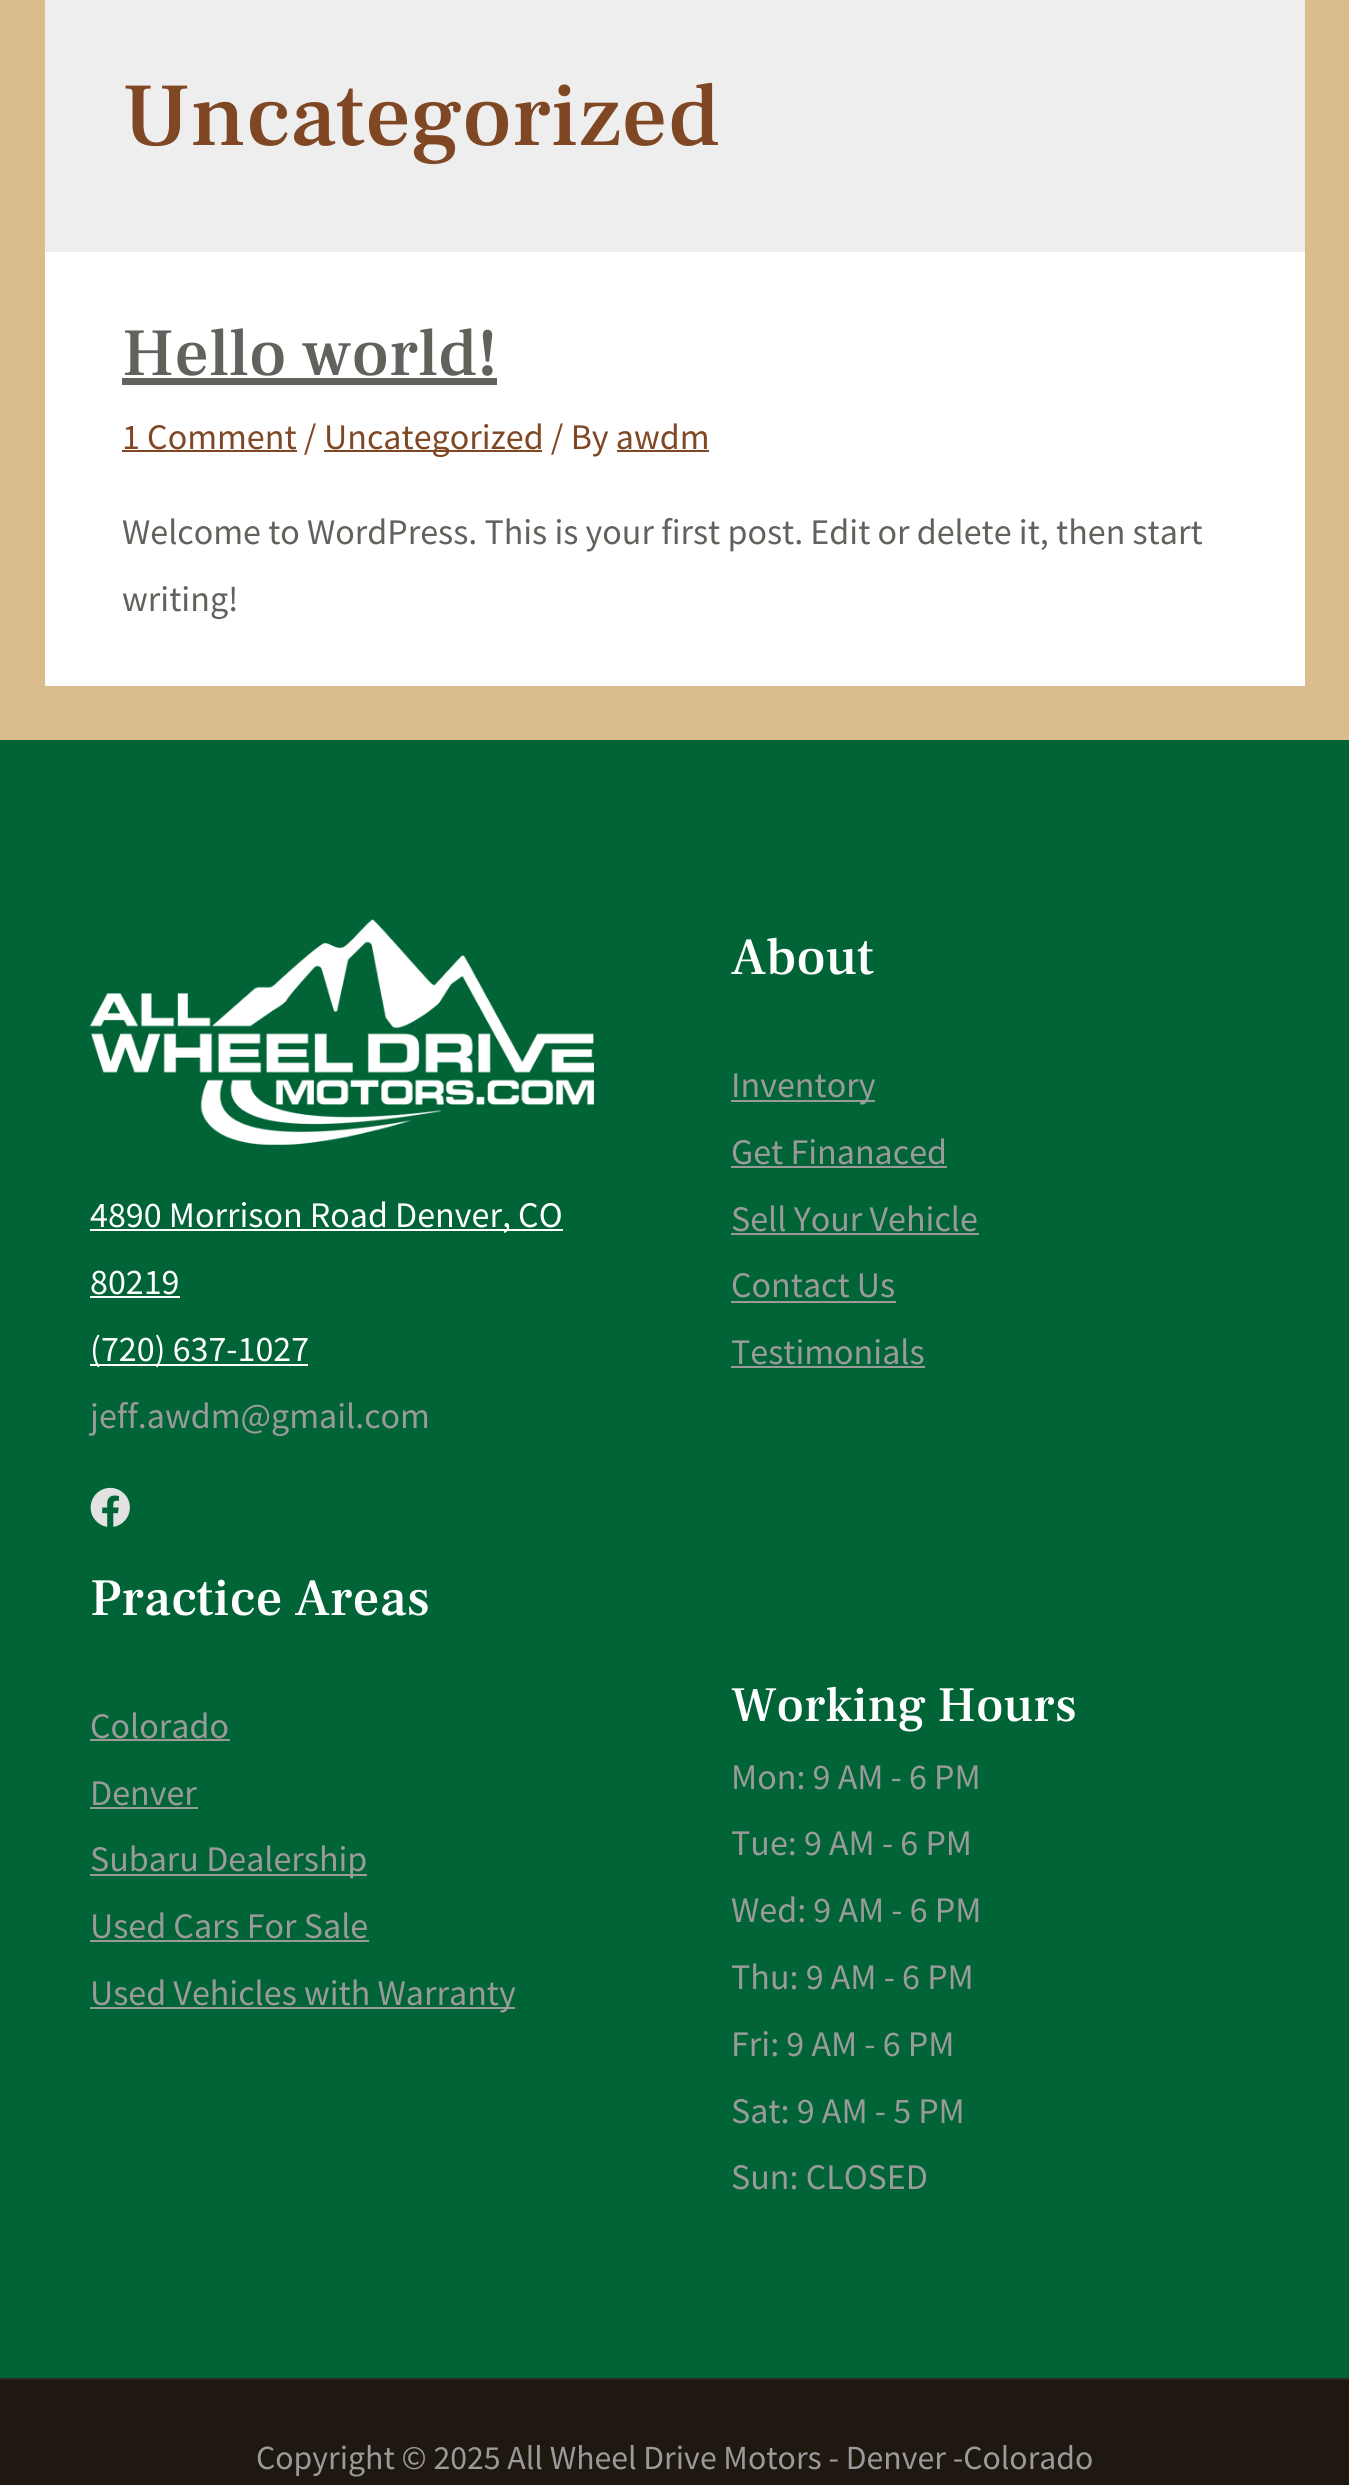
import math
import cairocffi as cairo

surface = cairo.ImageSurface(cairo.FORMAT_RGB24, 1349, 2485)
cr = cairo.Context(surface)
options = cairo.FontOptions()
options.set_hint_metrics(cairo.HINT_METRICS_OFF)
options.set_hint_style(cairo.HINT_STYLE_NONE)
cr.set_font_options(options)
cr.set_miter_limit(4)


def use_color(code):
    cr.set_source_rgb(*(v / 255 for v in bytes.fromhex(code[-6:])))


def picture(path, x, y, w, h):
    cr.save()
    cr.set_source_surface(cairo.ImageSurface.create_from_png(path), x, y)
    cr.rectangle(x, y, w, h)
    cr.fill()
    cr.restore()


use_color("#dbbc8c")
cr.paint()
use_color("#eeeeee")
cr.rectangle(45, 0, 1260, 252)
cr.fill()
cr.select_font_face("Frank Ruhl Libre Medium")
cr.set_font_size(90)
use_color("#7f4723")
cr.move_to(122, 145)
cr.show_text("Uncategorized")
use_color("#ffffff")
cr.rectangle(45, 252, 1260, 434)
cr.fill()
cr.set_font_size(67.5)
use_color("#62615c")
cr.move_to(122, 375)
cr.show_text("Hello world!")
cr.rectangle(122, 378, 375, 7)
cr.fill()
use_color("#7f4723")
cr.rectangle(122, 450, 175, 2)
cr.fill()
cr.select_font_face("Source Sans Pro")
cr.set_font_size(36)
cr.move_to(122, 449)
cr.show_text("1 Comment /")
cr.rectangle(324, 450, 218, 2)
cr.fill()
cr.move_to(324, 449)
cr.show_text("Uncategorized / By awdm")
cr.rectangle(617, 450, 92, 2)
cr.fill()
use_color("#62615c")
cr.move_to(122, 544)
cr.show_text("Welcome to WordPress. This is your first post. Edit or delete it, then start")
cr.move_to(122, 611)
cr.show_text("writing!")
use_color("#006437")
cr.rectangle(0, 740, 1349, 1638)
cr.fill()
picture("img1.png", 90, 919, 504, 226)
use_color("#ffffff")
cr.rectangle(90, 1229, 473, 2)
cr.fill()
cr.move_to(90, 1227)
cr.show_text("4890 Morrison Road Denver, CO")
cr.move_to(90, 1294)
cr.show_text("80219")
cr.rectangle(90, 1296, 90, 2)
cr.fill()
cr.rectangle(90, 1364, 218, 2)
cr.fill()
cr.move_to(90, 1361)
cr.show_text("(720) 637-1027")
use_color("#9a9a9a")
cr.move_to(90, 1428)
cr.show_text("jeff.awdm@gmail.com")
picture("img2.png", 90, 1487, 40, 40)
cr.select_font_face("Frank Ruhl Libre Medium")
cr.set_font_size(52.5)
use_color("#ffffff")
cr.move_to(731, 974)
cr.show_text("About")
use_color("#9a9a9a")
cr.rectangle(731, 1100, 144, 2)
cr.fill()
cr.select_font_face("Source Sans Pro")
cr.set_font_size(36)
cr.move_to(731, 1097)
cr.show_text("Inventory")
cr.move_to(731, 1164)
cr.show_text("Get Finanaced")
cr.rectangle(731, 1166, 216, 2)
cr.fill()
cr.move_to(731, 1231)
cr.show_text("Sell Your Vehicle")
cr.rectangle(731, 1233, 248, 2)
cr.fill()
cr.move_to(731, 1297)
cr.show_text("Contact Us")
cr.rectangle(731, 1301, 165, 2)
cr.fill()
cr.move_to(731, 1364)
cr.show_text("Testimonials")
cr.rectangle(731, 1366, 194, 2)
cr.fill()
cr.select_font_face("Frank Ruhl Libre Medium")
cr.set_font_size(52.5)
use_color("#ffffff")
cr.move_to(90, 1615)
cr.show_text("Practice Areas")
cr.select_font_face("Source Sans Pro")
cr.set_font_size(36)
use_color("#9a9a9a")
cr.move_to(90, 1738)
cr.show_text("Colorado")
cr.rectangle(90, 1739, 140, 2)
cr.fill()
cr.move_to(90, 1805)
cr.show_text("Denver")
cr.rectangle(90, 1807, 108, 2)
cr.fill()
cr.rectangle(90, 1874, 277, 2)
cr.fill()
cr.move_to(90, 1871)
cr.show_text("Subaru Dealership")
cr.move_to(90, 1938)
cr.show_text("Used Cars For Sale")
cr.rectangle(90, 1940, 279, 2)
cr.fill()
cr.rectangle(90, 2007, 425, 2)
cr.fill()
cr.move_to(90, 2005)
cr.show_text("Used Vehicles with Warranty")
cr.select_font_face("Frank Ruhl Libre Medium")
cr.set_font_size(49.5)
use_color("#ffffff")
cr.move_to(731, 1721)
cr.show_text("Working Hours")
cr.select_font_face("Source Sans Pro")
cr.set_font_size(36)
use_color("#9a9a9a")
cr.move_to(731, 1789)
cr.show_text("Mon: 9 AM - 6 PM")
cr.move_to(731, 1855)
cr.show_text("Tue: 9 AM - 6 PM")
cr.move_to(731, 1922)
cr.show_text("Wed: 9 AM - 6 PM")
cr.move_to(731, 1989)
cr.show_text("Thu: 9 AM - 6 PM")
cr.move_to(731, 2056)
cr.show_text("Fri: 9 AM - 6 PM")
cr.move_to(731, 2123)
cr.show_text("Sat: 9 AM - 5 PM")
cr.move_to(731, 2189)
cr.show_text("Sun: CLOSED")
use_color("#1e1810")
cr.rectangle(0, 2380, 1349, 105)
cr.fill()
use_color("#302a23")
cr.rectangle(0, 2378, 1349, 2)
cr.fill()
cr.set_font_size(33.75)
use_color("#9a9a9a")
cr.move_to(256, 2469)
cr.show_text("Copyright © 2025 All Wheel Drive Motors - Denver -Colorado")
surface.write_to_png("result.png")
